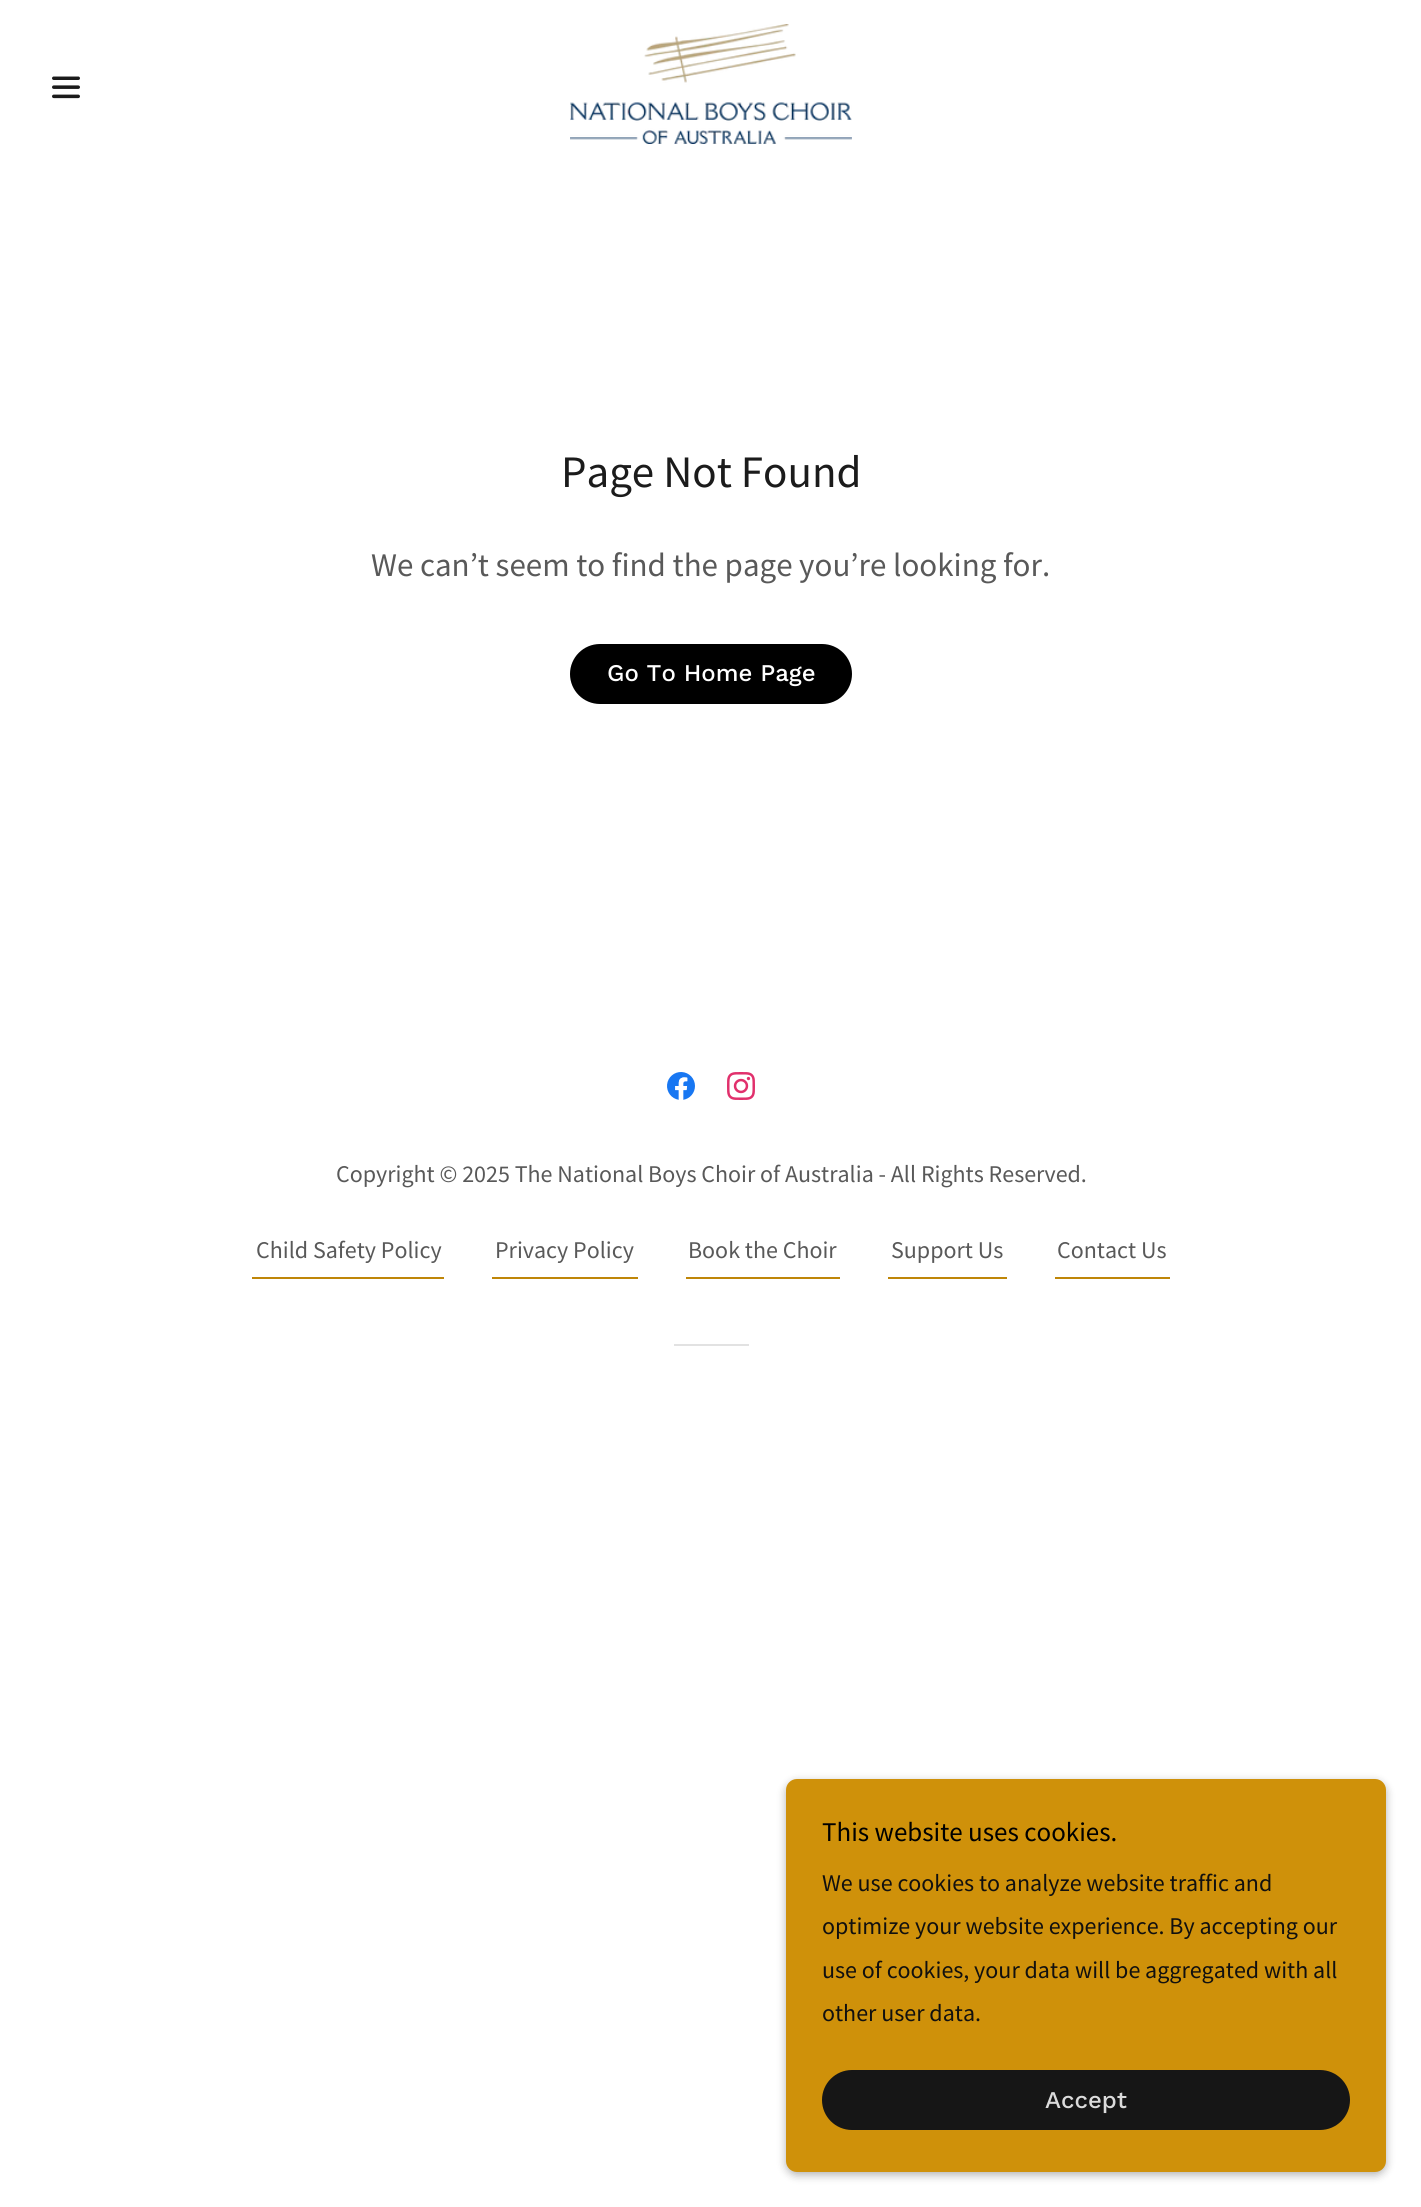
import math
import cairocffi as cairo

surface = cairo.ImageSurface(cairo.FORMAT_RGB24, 1421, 2207)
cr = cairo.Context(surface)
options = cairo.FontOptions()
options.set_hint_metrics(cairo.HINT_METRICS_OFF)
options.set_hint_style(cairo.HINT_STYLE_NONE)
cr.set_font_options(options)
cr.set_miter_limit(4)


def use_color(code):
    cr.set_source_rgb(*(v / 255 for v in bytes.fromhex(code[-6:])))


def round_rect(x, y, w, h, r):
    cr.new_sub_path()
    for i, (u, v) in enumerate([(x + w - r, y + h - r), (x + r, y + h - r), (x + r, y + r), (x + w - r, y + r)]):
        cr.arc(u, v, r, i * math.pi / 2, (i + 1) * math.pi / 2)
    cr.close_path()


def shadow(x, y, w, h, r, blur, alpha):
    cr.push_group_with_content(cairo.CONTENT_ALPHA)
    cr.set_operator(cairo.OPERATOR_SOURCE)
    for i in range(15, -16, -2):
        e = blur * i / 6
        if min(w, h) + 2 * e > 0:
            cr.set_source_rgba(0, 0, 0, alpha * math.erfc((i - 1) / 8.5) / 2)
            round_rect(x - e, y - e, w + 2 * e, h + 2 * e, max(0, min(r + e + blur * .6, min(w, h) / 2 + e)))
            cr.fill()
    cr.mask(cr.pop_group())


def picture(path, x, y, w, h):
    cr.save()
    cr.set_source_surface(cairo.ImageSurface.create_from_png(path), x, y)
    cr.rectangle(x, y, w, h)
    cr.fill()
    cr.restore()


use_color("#ffffff")
cr.paint()
picture("img1.png", 52, 76, 28, 23)
picture("img2.png", 570, 24, 282, 120)
cr.select_font_face("Source Sans Pro")
cr.set_font_size(45)
use_color("#1b1b1b")
cr.move_to(561, 487)
cr.show_text("Page Not Found")
cr.set_font_size(33)
use_color("#595959")
cr.move_to(371, 576)
cr.show_text("We can’t seem to find the page you’re looking for.")
use_color("#000000")
round_rect(570, 644, 282, 60, 30)
cr.fill()
cr.select_font_face("Work Sans Medium")
cr.set_font_size(24)
use_color("#ffffff")
cr.move_to(607, 681)
cr.show_text("Go To Home Page")
picture("img3.png", 667, 1072, 28, 28)
picture("img4.png", 727, 1072, 28, 28)
cr.select_font_face("Source Sans Pro")
use_color("#595959")
cr.move_to(336, 1182)
cr.show_text("Copyright © 2025 The National Boys Choir of Australia - All Rights Reserved.")
use_color("#bf8608")
cr.rectangle(252, 1277, 192, 2)
cr.fill()
use_color("#595959")
cr.move_to(256, 1258)
cr.show_text("Child Safety Policy")
use_color("#bf8608")
cr.rectangle(492, 1277, 146, 2)
cr.fill()
use_color("#595959")
cr.move_to(495, 1258)
cr.show_text("Privacy Policy")
use_color("#bf8608")
cr.rectangle(686, 1277, 154, 2)
cr.fill()
use_color("#595959")
cr.move_to(688, 1258)
cr.show_text("Book the Choir")
use_color("#bf8608")
cr.rectangle(888, 1277, 119, 2)
cr.fill()
use_color("#595959")
cr.move_to(891, 1258)
cr.show_text("Support Us")
use_color("#bf8608")
cr.rectangle(1055, 1277, 115, 2)
cr.fill()
use_color("#595959")
cr.move_to(1057, 1258)
cr.show_text("Contact Us")
use_color("#e2e2e2")
cr.rectangle(674, 1344, 75, 2)
cr.fill()
use_color("#000000")
shadow(786, 1782, 600, 393, 11, 4.5, 0.3)
use_color("#cf910a")
round_rect(786, 1779, 600, 393, 11)
cr.fill()
cr.set_font_size(27)
use_color("#000000")
cr.move_to(822, 1841)
cr.show_text("This website uses cookies.")
cr.set_font_size(24)
use_color("#11100f")
cr.move_to(822, 1891)
cr.show_text("We use cookies to analyze website traffic and")
cr.move_to(822, 1934)
cr.show_text("optimize your website experience. By accepting our")
cr.move_to(822, 1978)
cr.show_text("use of cookies, your data will be aggregated with all")
cr.move_to(822, 2021)
cr.show_text("other user data.")
use_color("#161616")
round_rect(822, 2070, 528, 60, 30)
cr.fill()
cr.select_font_face("Work Sans Medium")
use_color("#dbdbdb")
cr.move_to(1045, 2108)
cr.show_text("Accept")
surface.write_to_png("result.png")
